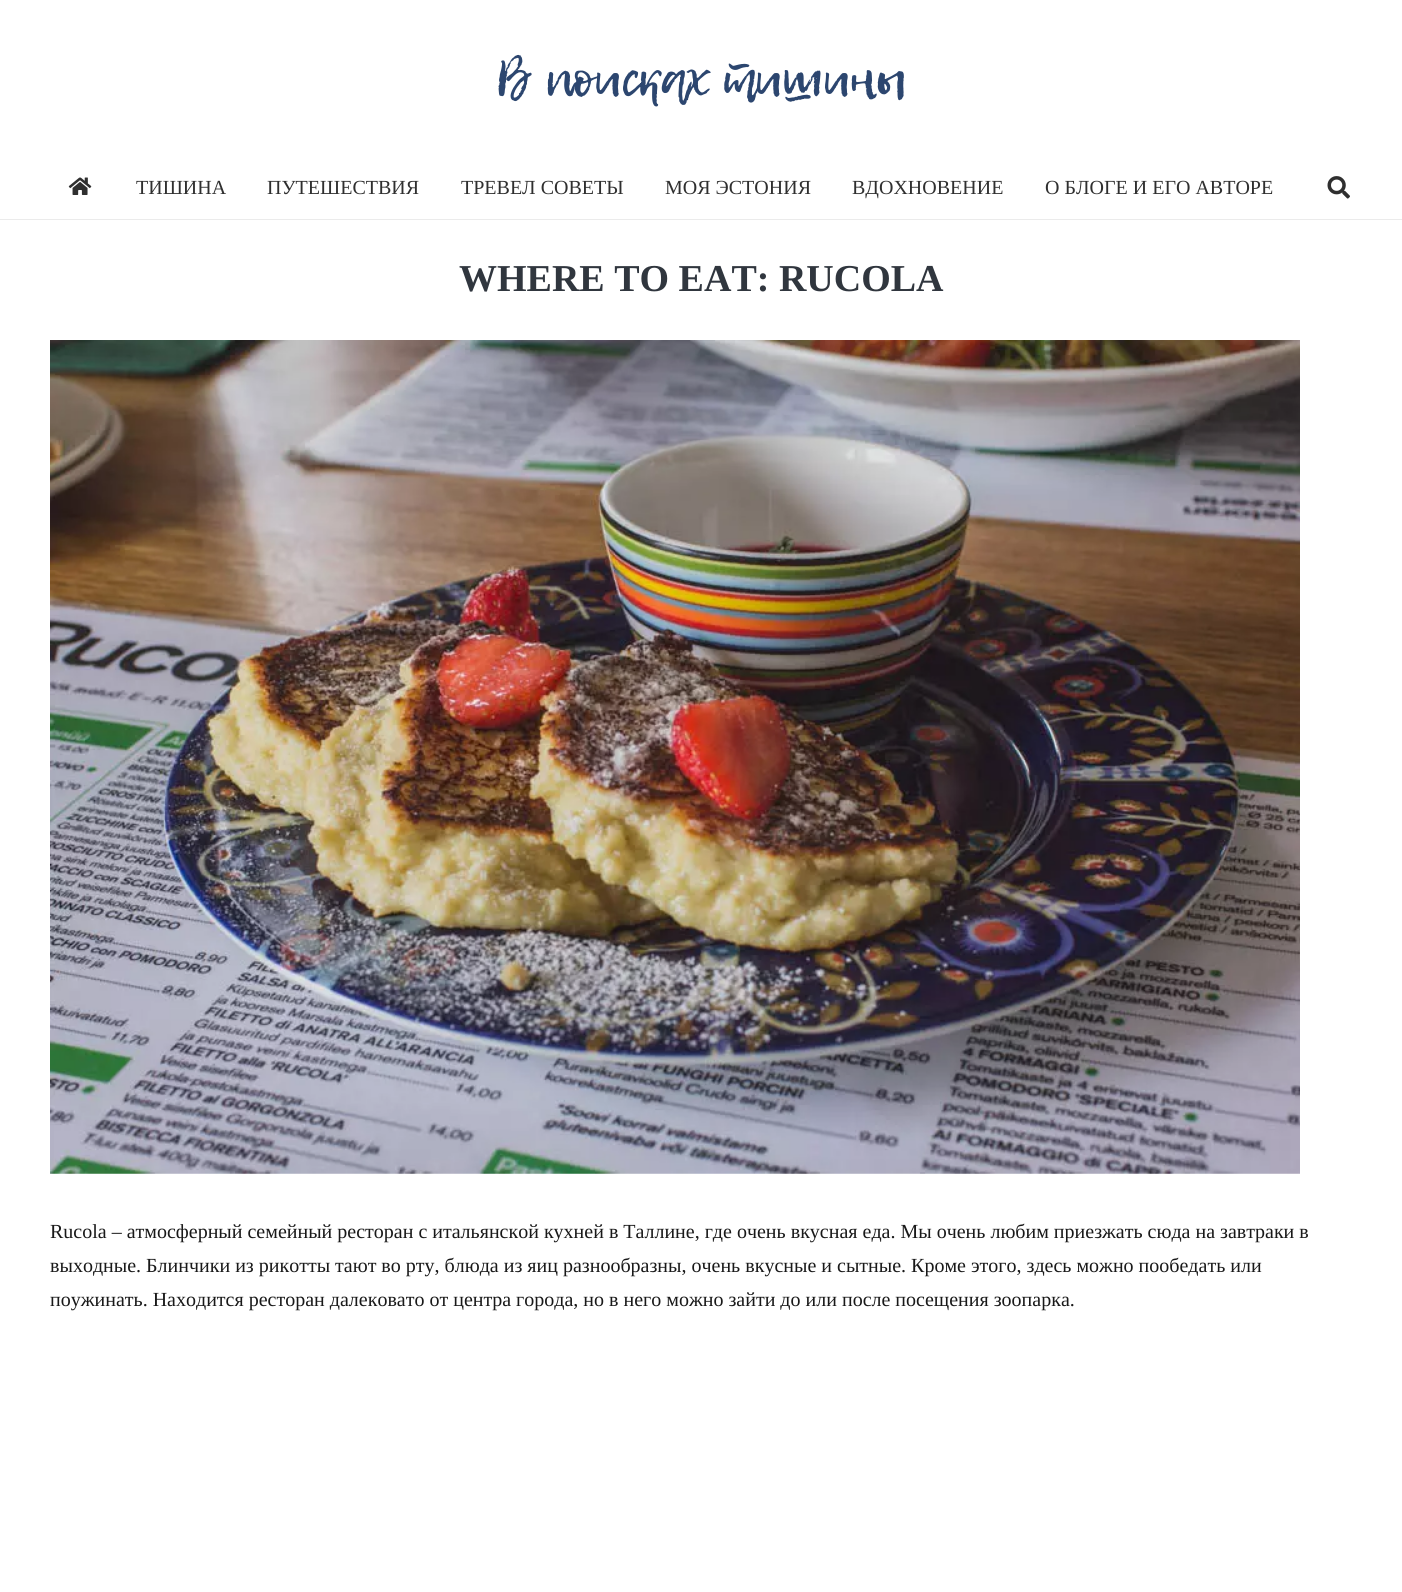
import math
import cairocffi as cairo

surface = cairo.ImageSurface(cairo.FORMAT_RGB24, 1402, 1592)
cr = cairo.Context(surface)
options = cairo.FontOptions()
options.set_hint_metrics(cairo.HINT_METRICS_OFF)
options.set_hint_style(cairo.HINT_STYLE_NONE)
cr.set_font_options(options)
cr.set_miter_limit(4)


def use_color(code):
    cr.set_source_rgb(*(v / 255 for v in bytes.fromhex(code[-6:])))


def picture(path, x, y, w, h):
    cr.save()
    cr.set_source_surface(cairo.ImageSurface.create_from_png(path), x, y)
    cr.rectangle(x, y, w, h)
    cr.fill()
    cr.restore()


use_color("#ffffff")
cr.paint()
cr.select_font_face("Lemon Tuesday")
cr.set_font_size(50)
use_color("#2c466f")
cr.move_to(496, 96)
cr.show_text("В поисках тишины")
use_color("#ebebeb")
cr.new_path()
cr.move_to(0, 219)
cr.line_to(0, 220)
cr.line_to(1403, 220)
cr.line_to(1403, 158)
cr.line_to(1402, 158)
cr.line_to(1402, 219)
cr.close_path()
cr.fill()
picture("img1.png", 68, 177, 24, 18)
cr.select_font_face("Liberation Serif")
cr.set_font_size(20)
use_color("#2f2f2f")
cr.move_to(136, 194)
cr.show_text("ТИШИНА")
cr.move_to(267, 194)
cr.show_text("ПУТЕШЕСТВИЯ")
cr.move_to(461, 194)
cr.show_text("ТРЕВЕЛ СОВЕТЫ")
cr.move_to(665, 194)
cr.show_text("МОЯ ЭСТОНИЯ")
cr.move_to(852, 194)
cr.show_text("ВДОХНОВЕНИЕ")
cr.move_to(1045, 194)
cr.show_text("О БЛОГЕ И ЕГО АВТОРЕ")
picture("img2.png", 1327, 176, 23, 23)
cr.select_font_face("Liberation Serif", cairo.FONT_SLANT_NORMAL, cairo.FONT_WEIGHT_BOLD)
cr.set_font_size(38)
use_color("#30363e")
cr.move_to(459, 291)
cr.show_text("WHERE TO EAT: RUCOLA")
picture("img3.png", 50, 340, 1250, 834)
cr.select_font_face("Liberation Serif")
cr.set_font_size(20)
use_color("#191919")
cr.move_to(50, 1238)
cr.show_text("Rucola – атмосферный семейный ресторан с итальянской кухней в Таллине, где очень вкусная еда. Мы очень любим приезжать сюда на завтраки в")
cr.move_to(50, 1272)
cr.show_text("выходные. Блинчики из рикотты тают во рту, блюда из яиц разнообразны, очень вкусные и сытные. Кроме этого, здесь можно пообедать или")
cr.move_to(50, 1306)
cr.show_text("поужинать. Находится ресторан далековато от центра города, но в него можно зайти до или после посещения зоопарка.")
surface.write_to_png("result.png")
